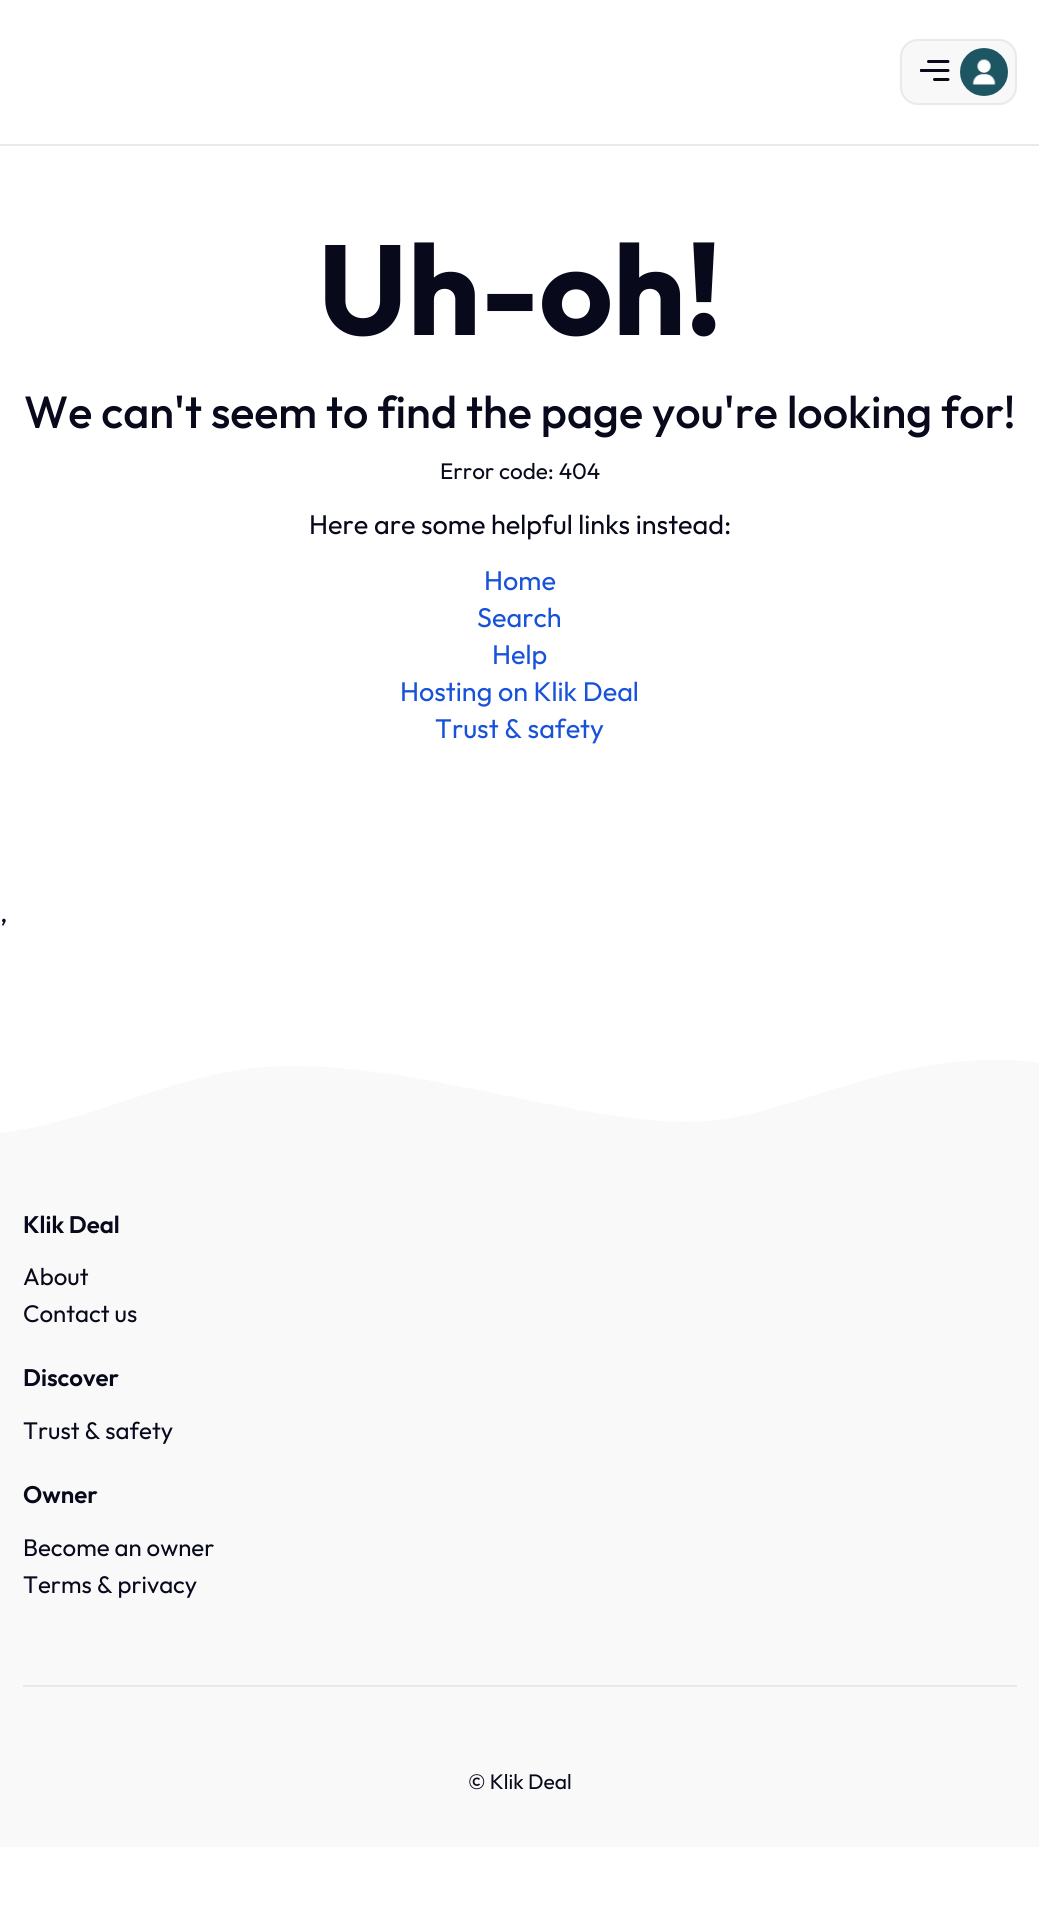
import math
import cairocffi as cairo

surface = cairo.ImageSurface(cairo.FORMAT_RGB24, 1039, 1921)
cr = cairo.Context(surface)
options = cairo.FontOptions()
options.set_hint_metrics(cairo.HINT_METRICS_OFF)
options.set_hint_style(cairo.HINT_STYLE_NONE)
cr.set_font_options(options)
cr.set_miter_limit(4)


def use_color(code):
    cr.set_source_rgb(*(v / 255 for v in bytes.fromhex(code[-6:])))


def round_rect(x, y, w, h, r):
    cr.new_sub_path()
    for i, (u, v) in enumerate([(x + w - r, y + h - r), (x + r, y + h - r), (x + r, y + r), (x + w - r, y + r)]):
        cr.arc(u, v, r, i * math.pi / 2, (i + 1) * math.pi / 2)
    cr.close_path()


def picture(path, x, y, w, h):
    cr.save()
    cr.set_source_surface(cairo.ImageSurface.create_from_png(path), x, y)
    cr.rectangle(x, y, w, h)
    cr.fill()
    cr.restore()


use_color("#ffffff")
cr.paint()
use_color("#e9e9e9")
cr.rectangle(0, 144, 1039, 2)
cr.fill()
use_color("#f8f8f8")
round_rect(901, 40, 115, 64, 17)
cr.fill_preserve()
use_color("#e9e9e9")
cr.stroke()
picture("img1.png", 920, 60, 30, 21)
picture("img2.png", 960, 48, 48, 48)
cr.select_font_face("Outfit", cairo.FONT_SLANT_NORMAL, cairo.FONT_WEIGHT_BOLD)
cr.set_font_size(127.5)
use_color("#080a1c")
cr.move_to(318, 335)
cr.show_text("Uh-oh!")
cr.select_font_face("Outfit Medium")
cr.set_font_size(45)
cr.move_to(24, 428)
cr.show_text("We can't seem to find the page you're looking for!")
cr.select_font_face("Outfit")
cr.set_font_size(22.5)
cr.move_to(440, 479)
cr.show_text("Error code: 404")
cr.set_font_size(27)
cr.move_to(309, 534)
cr.show_text("Here are some helpful links instead:")
use_color("#1852d8")
cr.move_to(484, 590)
cr.show_text("Home")
cr.move_to(477, 627)
cr.show_text("Search")
cr.move_to(492, 664)
cr.show_text("Help")
cr.move_to(400, 701)
cr.show_text("Hosting on Klik Deal")
cr.move_to(435, 738)
cr.show_text("Trust & safety")
use_color("#080a1c")
cr.move_to(0, 922)
cr.show_text(",")
use_color("#f9f9f9")
cr.new_path()
cr.move_to(-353, 1121)
cr.curve_to(-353, 1121, -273, 1098, -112, 1129)
cr.curve_to(55, 1161, 144, 1068, 287, 1066)
cr.curve_to(434, 1064, 616, 1137, 726, 1119)
cr.curve_to(808, 1105, 888, 1058, 1004, 1060)
cr.curve_to(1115, 1062, 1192, 1128, 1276, 1137)
cr.curve_to(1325, 1142, 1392, 1114, 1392, 1114)
cr.line_to(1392, 1675)
cr.line_to(-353, 1675)
cr.close_path()
cr.fill()
cr.select_font_face("Outfit SemiBold")
cr.set_font_size(24)
use_color("#080a1c")
cr.move_to(23, 1233)
cr.show_text("Klik Deal")
cr.select_font_face("Outfit")
cr.move_to(23, 1285)
cr.show_text("About")
cr.move_to(23, 1322)
cr.show_text("Contact us")
cr.select_font_face("Outfit SemiBold")
cr.move_to(23, 1386)
cr.show_text("Discover")
cr.select_font_face("Outfit")
cr.move_to(23, 1439)
cr.show_text("Trust & safety")
cr.select_font_face("Outfit SemiBold")
cr.move_to(23, 1503)
cr.show_text("Owner")
cr.select_font_face("Outfit")
cr.move_to(23, 1556)
cr.show_text("Become an owner")
cr.move_to(23, 1593)
cr.show_text("Terms & privacy")
use_color("#f9f9f9")
cr.rectangle(0, 1675, 1039, 172)
cr.fill()
use_color("#e9e9e9")
cr.rectangle(23, 1685, 994, 2)
cr.fill()
cr.set_font_size(21)
use_color("#080a1c")
cr.move_to(468, 1789)
cr.show_text("© Klik Deal")
surface.write_to_png("result.png")
